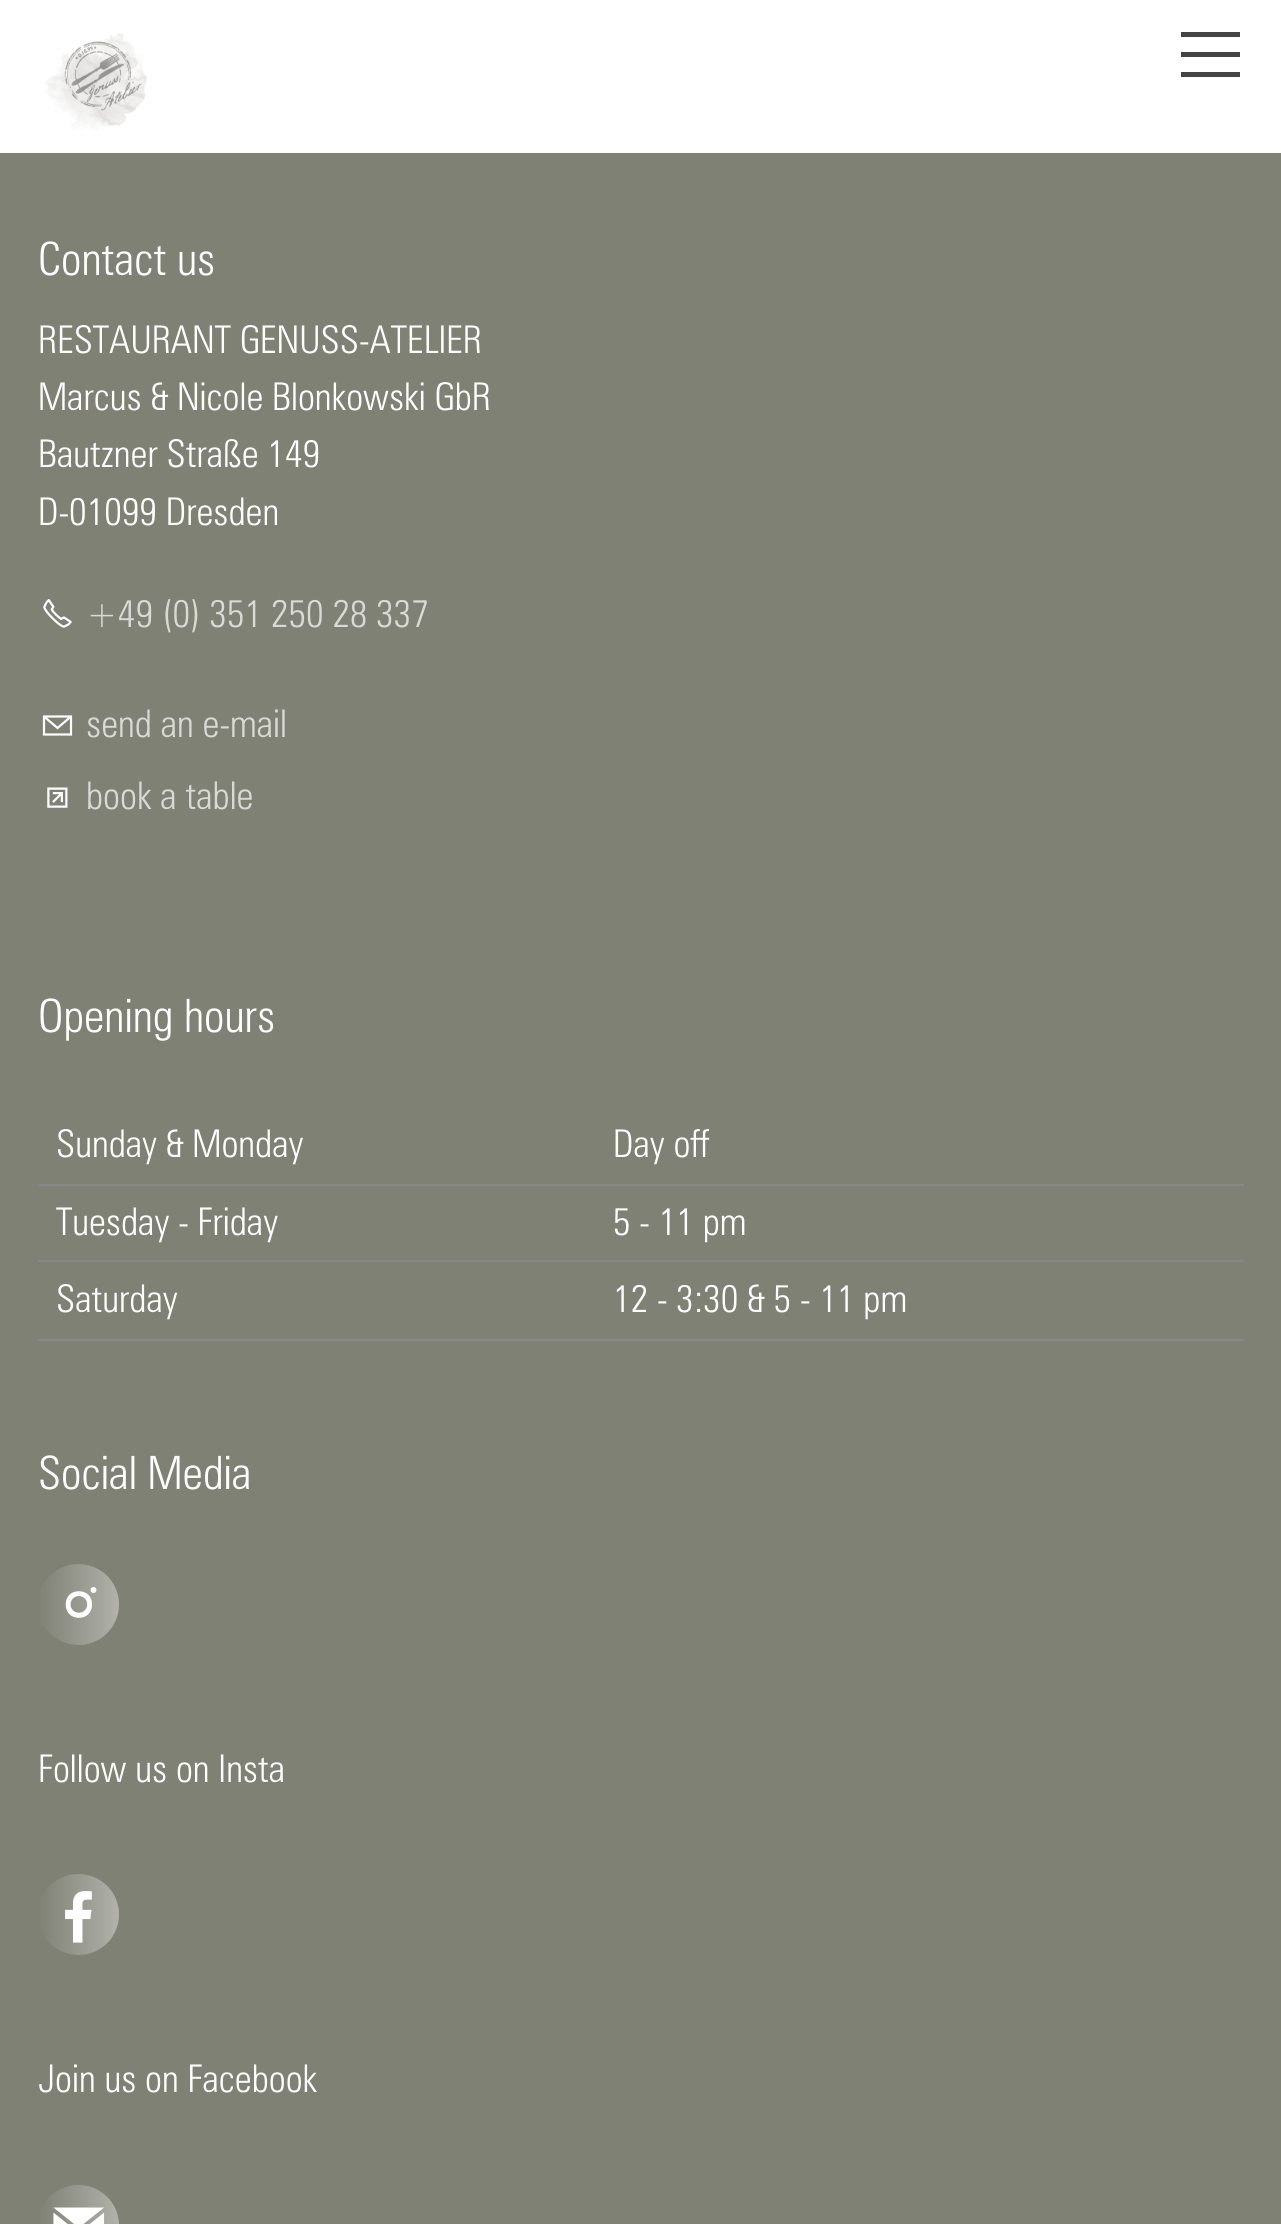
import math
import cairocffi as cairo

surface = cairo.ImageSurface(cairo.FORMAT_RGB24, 1281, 2224)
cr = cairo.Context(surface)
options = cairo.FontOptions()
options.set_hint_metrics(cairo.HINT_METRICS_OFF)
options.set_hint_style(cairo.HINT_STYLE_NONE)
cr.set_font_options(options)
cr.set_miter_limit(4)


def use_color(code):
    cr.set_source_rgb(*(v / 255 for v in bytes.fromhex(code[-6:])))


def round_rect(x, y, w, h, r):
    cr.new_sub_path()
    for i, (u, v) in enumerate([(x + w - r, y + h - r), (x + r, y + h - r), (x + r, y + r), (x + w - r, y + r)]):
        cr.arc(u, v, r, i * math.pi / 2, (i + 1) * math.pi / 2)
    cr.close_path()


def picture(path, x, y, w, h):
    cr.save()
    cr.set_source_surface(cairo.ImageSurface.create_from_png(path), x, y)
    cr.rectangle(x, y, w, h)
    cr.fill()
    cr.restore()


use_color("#ffffff")
cr.paint()
picture("img1.png", 44, 33, 103, 98)
use_color("#434343")
cr.rectangle(1181, 32, 59, 5)
cr.fill()
cr.rectangle(1181, 52, 59, 5)
cr.fill()
cr.rectangle(1181, 72, 59, 5)
cr.fill()
use_color("#808175")
cr.rectangle(0, 153, 1281, 2071)
cr.fill()
cr.select_font_face("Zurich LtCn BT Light")
cr.set_font_size(46)
use_color("#ffffff")
cr.move_to(38, 275)
cr.show_text("Contact us")
cr.set_font_size(38.25)
cr.move_to(38, 353)
cr.show_text("RESTAURANT GENUSS-ATELIER")
cr.move_to(38, 410)
cr.show_text("Marcus & Nicole Blonkowski GbR")
cr.move_to(38, 467)
cr.show_text("Bautzner Straße 149")
cr.move_to(38, 525)
cr.show_text("D-01099 Dresden")
picture("img2.png", 43, 599, 29, 29)
use_color("#d9d9d6")
cr.move_to(86, 627)
cr.show_text("+49 (0) 351 250 28 337")
cr.new_path()
cr.move_to(44, 716.5)
cr.line_to(71, 716.5)
cr.line_to(71, 734.5)
cr.line_to(44, 734.5)
cr.close_path()
cr.move_to(44, 716.5)
cr.line_to(57.5, 728)
cr.line_to(71, 716.5)
use_color("#ffffff")
cr.set_line_width(2.2)
cr.stroke()
use_color("#d9d9d6")
cr.move_to(86, 737)
cr.show_text("send an e-mail")
picture("img3.png", 47, 787, 21, 21)
cr.move_to(86, 809)
cr.show_text("book a table")
cr.set_font_size(46)
use_color("#ffffff")
cr.move_to(38, 1032)
cr.show_text("Opening hours")
use_color("#888888")
cr.rectangle(38, 1184, 1206, 2)
cr.fill()
cr.set_font_size(38.25)
use_color("#ffffff")
cr.move_to(56, 1157)
cr.show_text("Sunday & Monday")
cr.move_to(613, 1157)
cr.show_text("Day off")
use_color("#888888")
cr.rectangle(38, 1260, 1206, 2)
cr.fill()
use_color("#ffffff")
cr.move_to(56, 1235)
cr.show_text("Tuesday - Friday")
cr.move_to(613, 1235)
cr.show_text("5 - 11 pm")
use_color("#888888")
cr.rectangle(38, 1339, 1206, 2)
cr.fill()
use_color("#ffffff")
cr.move_to(56, 1312)
cr.show_text("Saturday")
cr.move_to(613, 1312)
cr.show_text("12 - 3:30 & 5 - 11 pm")
cr.set_font_size(46)
cr.move_to(38, 1489)
cr.show_text("Social Media")
gradient = cairo.LinearGradient(119, 1604, 38, 1604)
gradient.add_color_stop_rgba(0, 0.702, 0.702, 0.675, 1)
gradient.add_color_stop_rgba(0.2, 0.651, 0.655, 0.62, 1)
gradient.add_color_stop_rgba(1, 0.502, 0.506, 0.459, 1)
cr.set_source(gradient)
cr.new_path()
cr.arc(78.5, 1604.5, 40.5, 0, 2 * math.pi)
cr.fill()
picture("img4.png", 65, 1587, 32, 31)
cr.set_font_size(38.25)
use_color("#ffffff")
cr.move_to(38, 1782)
cr.show_text("Follow us on Insta")
gradient = cairo.LinearGradient(119, 1915, 38, 1915)
gradient.add_color_stop_rgba(0, 0.702, 0.702, 0.675, 1)
gradient.add_color_stop_rgba(0.2, 0.651, 0.655, 0.62, 1)
gradient.add_color_stop_rgba(1, 0.502, 0.506, 0.459, 1)
cr.set_source(gradient)
cr.new_path()
cr.arc(78.5, 1914.5, 40.5, 0, 2 * math.pi)
cr.fill()
picture("img5.png", 65, 1891, 27, 52)
use_color("#ffffff")
cr.move_to(38, 2092)
cr.show_text("Join us on Facebook")
gradient = cairo.LinearGradient(119, 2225, 38, 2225)
gradient.add_color_stop_rgba(0, 0.702, 0.702, 0.675, 1)
gradient.add_color_stop_rgba(0.2, 0.651, 0.655, 0.62, 1)
gradient.add_color_stop_rgba(1, 0.502, 0.506, 0.459, 1)
cr.set_source(gradient)
round_rect(38, 2185, 81, 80, 40.5)
cr.fill()
picture("img6.png", 53, 2207, 52, 17)
surface.write_to_png("result.png")
